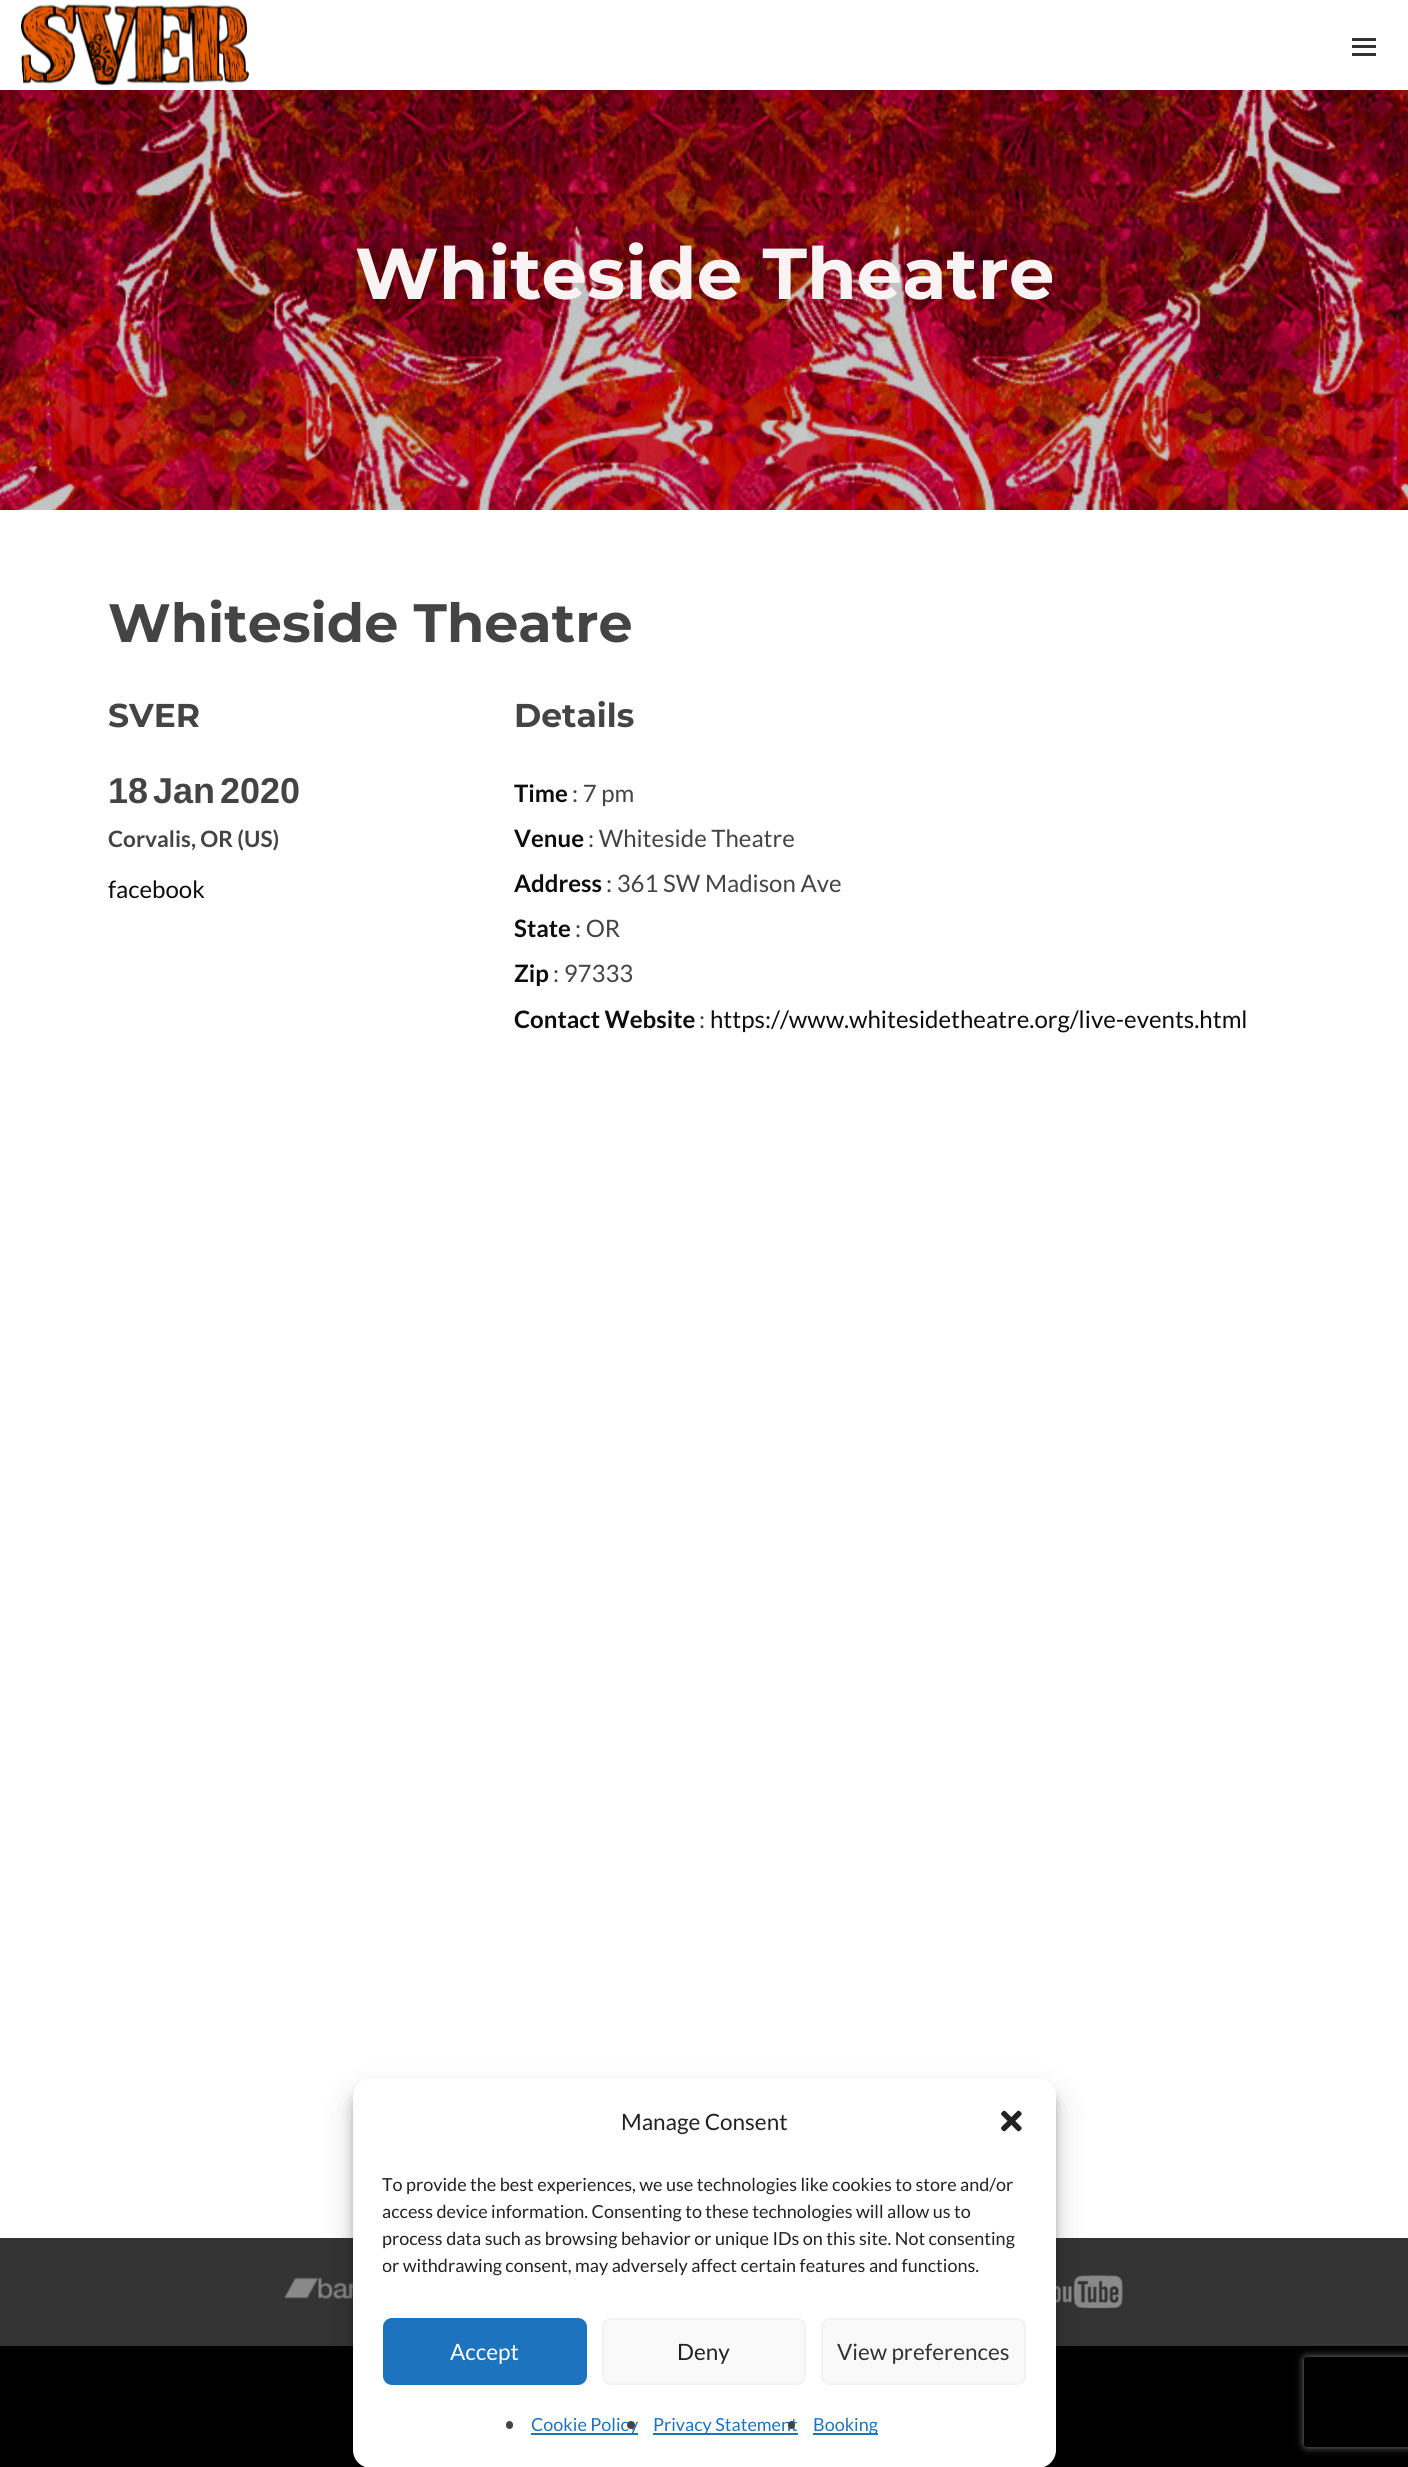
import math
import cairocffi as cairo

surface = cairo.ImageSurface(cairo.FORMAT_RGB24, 1408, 2467)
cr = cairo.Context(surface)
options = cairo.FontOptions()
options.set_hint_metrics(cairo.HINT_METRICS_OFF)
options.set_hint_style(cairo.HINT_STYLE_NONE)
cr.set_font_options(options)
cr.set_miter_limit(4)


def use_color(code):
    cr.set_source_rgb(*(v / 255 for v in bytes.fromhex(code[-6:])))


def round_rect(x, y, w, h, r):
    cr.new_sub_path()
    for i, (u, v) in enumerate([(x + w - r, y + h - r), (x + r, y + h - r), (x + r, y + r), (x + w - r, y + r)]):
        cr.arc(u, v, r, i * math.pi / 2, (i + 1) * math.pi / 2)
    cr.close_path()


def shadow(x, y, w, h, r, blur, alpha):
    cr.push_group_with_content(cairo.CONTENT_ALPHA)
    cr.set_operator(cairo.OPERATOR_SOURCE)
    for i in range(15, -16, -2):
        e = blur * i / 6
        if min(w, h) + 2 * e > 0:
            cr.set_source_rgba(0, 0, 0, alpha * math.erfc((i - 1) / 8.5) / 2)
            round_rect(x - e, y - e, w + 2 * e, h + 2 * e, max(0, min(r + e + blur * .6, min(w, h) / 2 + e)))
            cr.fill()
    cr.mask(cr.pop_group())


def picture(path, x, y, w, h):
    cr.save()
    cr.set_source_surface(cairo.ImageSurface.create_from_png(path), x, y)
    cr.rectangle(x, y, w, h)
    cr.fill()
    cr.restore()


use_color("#ffffff")
cr.paint()
picture("img1.png", 21, 4, 228, 82)
use_color("#333333")
cr.rectangle(1352, 38, 24, 3)
cr.fill()
cr.rectangle(1352, 45, 24, 3)
cr.fill()
cr.rectangle(1352, 53, 24, 3)
cr.fill()
picture("img2.png", 0, 90, 1408, 420)
cr.select_font_face("Montserrat", cairo.FONT_SLANT_NORMAL, cairo.FONT_WEIGHT_BOLD)
cr.set_font_size(72)
use_color("#f9f3f4")
cr.move_to(355, 299)
cr.show_text("Whiteside Theatre")
cr.set_font_size(54)
use_color("#444444")
cr.move_to(108, 642)
cr.show_text("Whiteside Theatre")
cr.set_font_size(33)
cr.move_to(108, 727)
cr.show_text("SVER")
cr.select_font_face("Liberation Sans", cairo.FONT_SLANT_NORMAL, cairo.FONT_WEIGHT_BOLD)
cr.set_font_size(36)
cr.move_to(108, 803)
cr.show_text("18")
cr.move_to(153, 803)
cr.show_text("Jan")
cr.move_to(220, 803)
cr.show_text("2020")
cr.select_font_face("Lato", cairo.FONT_SLANT_NORMAL, cairo.FONT_WEIGHT_BOLD)
cr.set_font_size(22.5)
cr.move_to(108, 847)
cr.show_text("Corvalis, OR (US)")
cr.select_font_face("Lato")
cr.set_font_size(24)
use_color("#0d0d0d")
cr.move_to(108, 898)
cr.show_text("facebook")
cr.select_font_face("Montserrat", cairo.FONT_SLANT_NORMAL, cairo.FONT_WEIGHT_BOLD)
cr.set_font_size(33)
use_color("#444444")
cr.move_to(514, 727)
cr.show_text("Details")
cr.select_font_face("Lato", cairo.FONT_SLANT_NORMAL, cairo.FONT_WEIGHT_BOLD)
cr.set_font_size(24)
use_color("#0d0d0d")
cr.move_to(514, 802)
cr.show_text("Time")
cr.select_font_face("Lato")
use_color("#444444")
cr.move_to(572, 802)
cr.show_text(": 7 pm")
cr.select_font_face("Lato", cairo.FONT_SLANT_NORMAL, cairo.FONT_WEIGHT_BOLD)
use_color("#0d0d0d")
cr.move_to(514, 847)
cr.show_text("Venue")
cr.select_font_face("Lato")
use_color("#444444")
cr.move_to(588, 847)
cr.show_text(": Whiteside Theatre")
cr.select_font_face("Lato", cairo.FONT_SLANT_NORMAL, cairo.FONT_WEIGHT_BOLD)
use_color("#0d0d0d")
cr.move_to(514, 892)
cr.show_text("Address")
cr.select_font_face("Lato")
use_color("#444444")
cr.move_to(606, 892)
cr.show_text(": 361 SW Madison Ave")
cr.select_font_face("Lato", cairo.FONT_SLANT_NORMAL, cairo.FONT_WEIGHT_BOLD)
use_color("#0d0d0d")
cr.move_to(514, 937)
cr.show_text("State")
cr.select_font_face("Lato")
use_color("#444444")
cr.move_to(575, 937)
cr.show_text(": OR")
cr.select_font_face("Lato", cairo.FONT_SLANT_NORMAL, cairo.FONT_WEIGHT_BOLD)
use_color("#0d0d0d")
cr.move_to(514, 982)
cr.show_text("Zip")
cr.select_font_face("Lato")
use_color("#444444")
cr.move_to(553, 982)
cr.show_text(": 97333")
cr.select_font_face("Lato", cairo.FONT_SLANT_NORMAL, cairo.FONT_WEIGHT_BOLD)
use_color("#0d0d0d")
cr.move_to(514, 1028)
cr.show_text("Contact Website")
cr.select_font_face("Lato")
use_color("#444444")
cr.move_to(699, 1028)
cr.show_text(":")
use_color("#0d0d0d")
cr.move_to(710, 1028)
cr.show_text("https://www.whitesidetheatre.org/live-events.html")
use_color("#333333")
cr.rectangle(0, 2238, 1408, 108)
cr.fill()
picture("img3.png", 284, 2277, 69, 22)
picture("img4.png", 1056, 2275, 67, 34)
use_color("#000000")
cr.rectangle(0, 2346, 1408, 121)
cr.fill()
use_color("#000000")
shadow(353, 2087, 703, 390, 18, 4.5, 0.23)
shadow(353, 2093, 703, 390, 18, 15, 0.19)
use_color("#ffffff")
round_rect(353, 2078, 703, 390, 18)
cr.fill()
cr.set_font_size(22.5)
use_color("#222222")
cr.move_to(621, 2130)
cr.show_text("Manage Consent")
picture("img5.png", 1001, 2110, 21, 22)
cr.set_font_size(18)
cr.move_to(382, 2191)
cr.show_text("To provide the best experiences, we use technologies like cookies to store and/or")
cr.move_to(382, 2218)
cr.show_text("access device information. Consenting to these technologies will allow us to")
cr.move_to(382, 2245)
cr.show_text("process data such as browsing behavior or unique IDs on this site. Not consenting")
cr.save()
cr.rectangle(383, 2172, 643, 116)
cr.clip()
cr.move_to(382, 2272)
cr.show_text("or withdrawing consent, may adversely affect certain features and functions.")
cr.restore()
use_color("#1e73be")
round_rect(384, 2319, 202, 65, 8)
cr.fill_preserve()
cr.stroke()
cr.set_font_size(22.5)
use_color("#ffffff")
cr.move_to(450, 2360)
cr.show_text("Accept")
use_color("#f9f9f9")
round_rect(603, 2319, 202, 65, 8)
cr.fill_preserve()
use_color("#f2f2f2")
cr.stroke()
use_color("#222222")
cr.move_to(677, 2360)
cr.show_text("Deny")
use_color("#f9f9f9")
round_rect(822, 2319, 203, 65, 8)
cr.fill_preserve()
use_color("#f2f2f2")
cr.stroke()
use_color("#333333")
cr.move_to(837, 2360)
cr.show_text("View preferences")
use_color("#444444")
round_rect(506, 2421, 7, 8, 3.5)
cr.fill()
use_color("#1e73be")
cr.rectangle(531, 2433, 107, 2)
cr.fill()
cr.set_font_size(18)
cr.move_to(531, 2431)
cr.show_text("Cookie Policy")
use_color("#444444")
cr.new_path()
cr.arc(631, 2425, 4, 0, 2 * math.pi)
cr.fill()
use_color("#1e73be")
cr.rectangle(653, 2433, 145, 2)
cr.fill()
cr.move_to(653, 2431)
cr.show_text("Privacy Statement")
use_color("#444444")
round_rect(788, 2421, 7, 8, 3.5)
cr.fill()
use_color("#1e73be")
cr.rectangle(813, 2433, 65, 2)
cr.fill()
cr.move_to(813, 2431)
cr.show_text("Booking")
cr.save()
cr.set_fill_rule(cairo.FILL_RULE_EVEN_ODD)
cr.new_path()
cr.move_to(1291, 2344)
cr.line_to(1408, 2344)
cr.line_to(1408, 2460)
cr.line_to(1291, 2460)
cr.close_path()
cr.move_to(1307, 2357)
cr.line_to(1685, 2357)
cr.curve_to(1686.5, 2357, 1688, 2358.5, 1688, 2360)
cr.line_to(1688, 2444)
cr.curve_to(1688, 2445.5, 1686.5, 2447, 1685, 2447)
cr.line_to(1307, 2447)
cr.curve_to(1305.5, 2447, 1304, 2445.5, 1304, 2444)
cr.line_to(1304, 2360)
cr.curve_to(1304, 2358.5, 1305.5, 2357, 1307, 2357)
cr.close_path()
cr.clip()
use_color("#808080")
shadow(1304, 2357, 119, 90, 3, 4, 1)
cr.restore()
surface.write_to_png("result.png")
